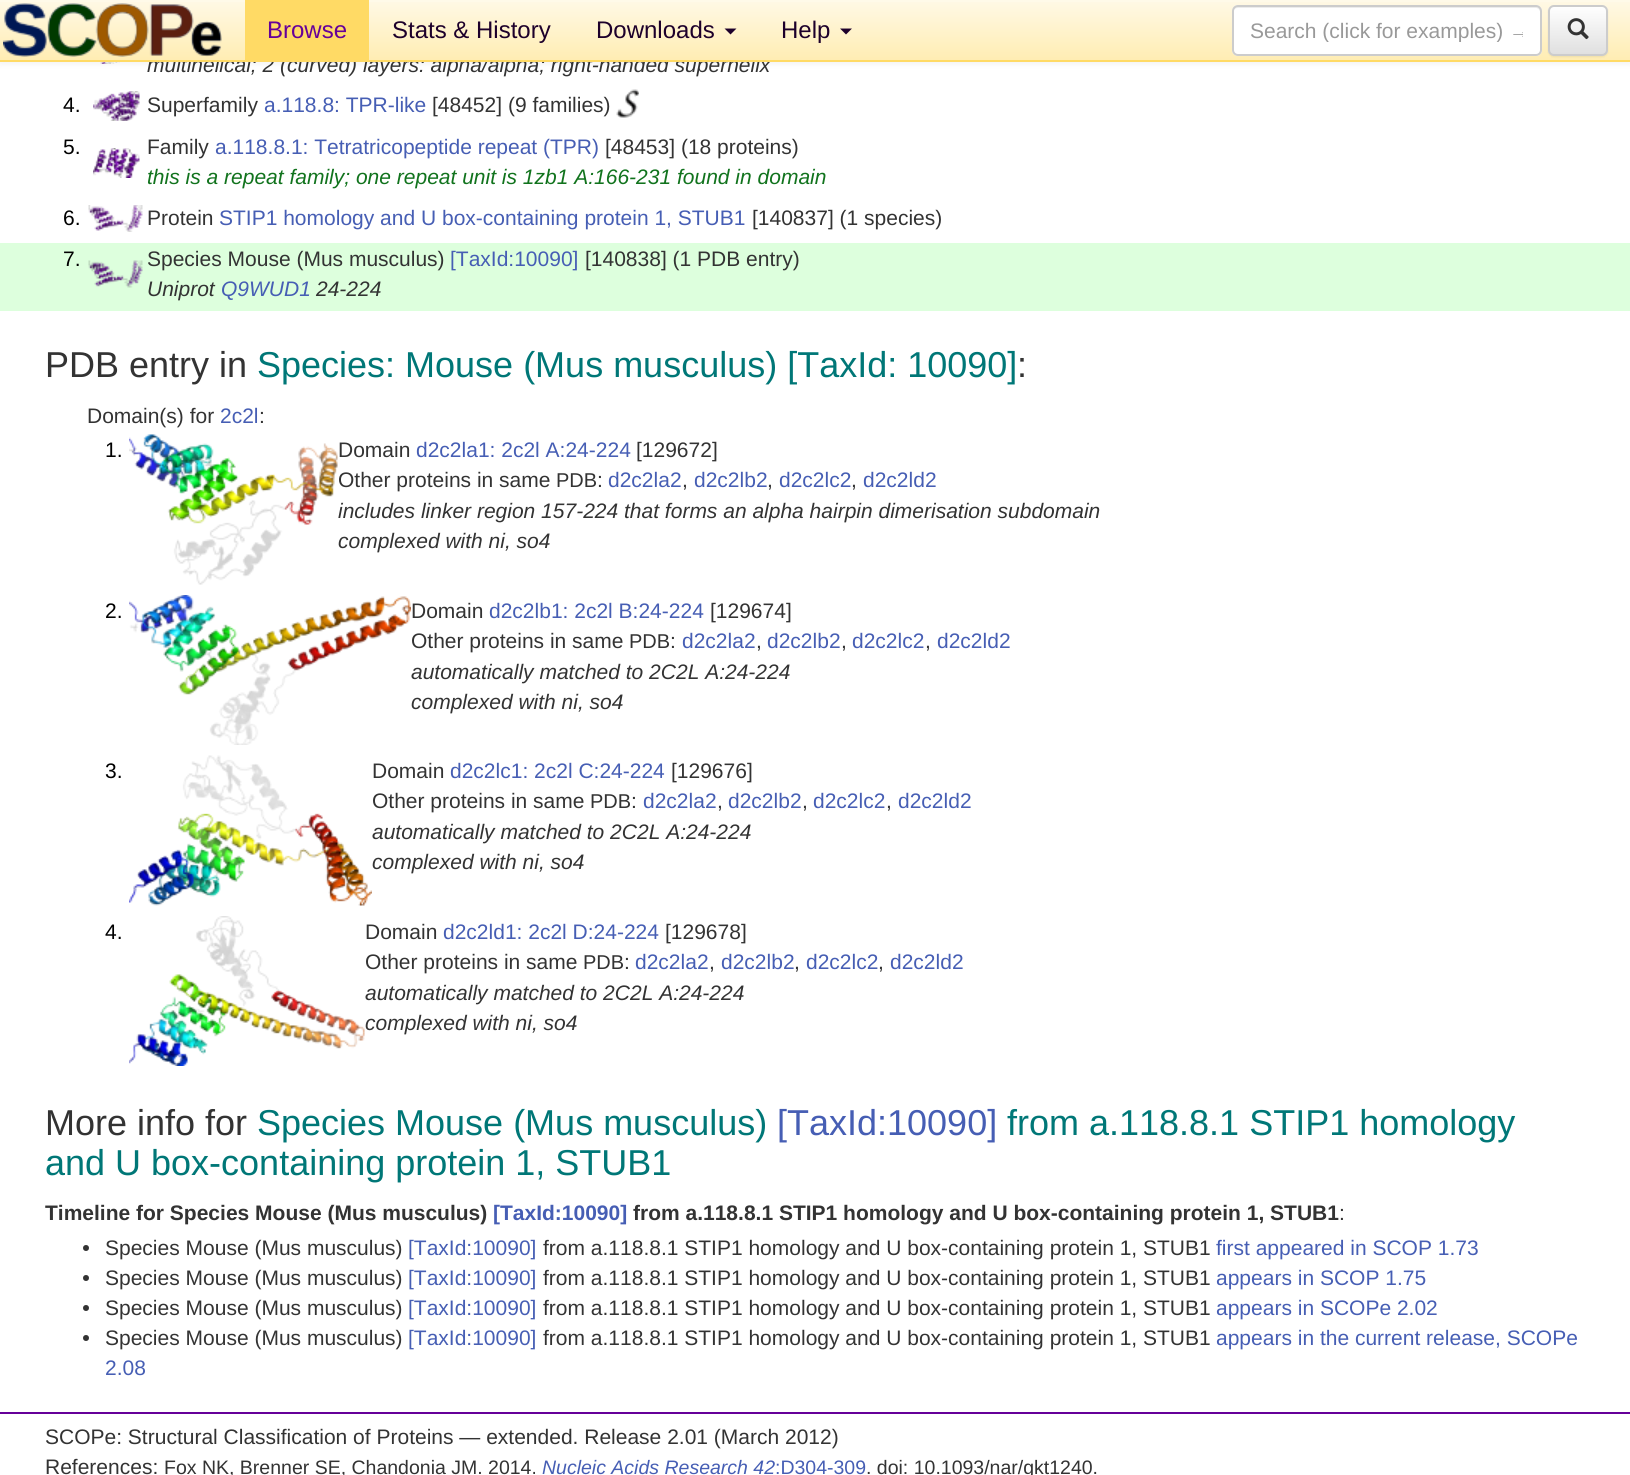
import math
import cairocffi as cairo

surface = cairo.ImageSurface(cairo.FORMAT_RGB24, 1630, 1475)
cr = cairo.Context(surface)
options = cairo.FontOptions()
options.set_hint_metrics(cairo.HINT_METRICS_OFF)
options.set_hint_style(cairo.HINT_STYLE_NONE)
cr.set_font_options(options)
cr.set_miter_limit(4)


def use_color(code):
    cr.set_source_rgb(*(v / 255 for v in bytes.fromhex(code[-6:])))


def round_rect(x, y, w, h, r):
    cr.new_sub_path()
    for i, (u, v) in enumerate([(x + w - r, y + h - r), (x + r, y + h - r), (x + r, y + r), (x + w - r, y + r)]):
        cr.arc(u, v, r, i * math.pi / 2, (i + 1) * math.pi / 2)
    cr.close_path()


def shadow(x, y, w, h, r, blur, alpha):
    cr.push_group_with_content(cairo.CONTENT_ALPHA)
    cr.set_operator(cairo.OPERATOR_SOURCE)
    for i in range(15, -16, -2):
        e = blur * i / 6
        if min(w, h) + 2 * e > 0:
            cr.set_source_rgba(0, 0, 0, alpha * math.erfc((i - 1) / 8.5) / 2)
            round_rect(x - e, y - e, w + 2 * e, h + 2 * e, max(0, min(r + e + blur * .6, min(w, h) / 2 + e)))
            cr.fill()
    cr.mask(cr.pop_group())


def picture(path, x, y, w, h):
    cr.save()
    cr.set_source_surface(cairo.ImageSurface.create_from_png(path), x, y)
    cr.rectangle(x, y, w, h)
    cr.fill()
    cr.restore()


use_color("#ffffff")
cr.paint()
picture("img3.png", 100, 62, 20, 2)
use_color("#000000")
shadow(0, 2, 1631, 61, 0, 4, 0.07)
cr.select_font_face("Liberation Sans", cairo.FONT_SLANT_ITALIC)
cr.set_font_size(21)
use_color("#333333")
cr.move_to(147, 72)
cr.show_text("multihelical; 2 (curved) layers: alpha/alpha; right-handed superhelix")
gradient = cairo.LinearGradient(815, 0, 815, 60)
gradient.add_color_stop_rgba(0, 1, 0.976, 0.902, 1)
gradient.add_color_stop_rgba(1, 1, 0.929, 0.702, 1)
cr.set_source(gradient)
cr.rectangle(0, 2, 1630, 58)
cr.fill()
use_color("#fffae9")
cr.rectangle(0, 0, 1630, 2)
cr.fill()
use_color("#ffda65")
cr.rectangle(0, 60, 1630, 2)
cr.fill()
picture("img1.png", 3, 3, 219, 54)
cr.rectangle(245, 0, 124, 60)
cr.fill()
cr.select_font_face("Liberation Sans")
cr.set_font_size(24)
use_color("#660099")
cr.move_to(267, 38)
cr.show_text("Browse")
use_color("#1d002b")
cr.move_to(392, 38)
cr.show_text("Stats & History")
cr.move_to(596, 38)
cr.show_text("Downloads")
cr.new_path()
cr.move_to(724.5, 28.5)
cr.line_to(736.5, 28.5)
cr.line_to(730.5, 34.5)
cr.close_path()
cr.fill()
cr.move_to(781, 38)
cr.show_text("Help")
cr.new_path()
cr.move_to(840, 28.5)
cr.line_to(852, 28.5)
cr.line_to(846, 34.5)
cr.close_path()
cr.fill()
use_color("#ffffff")
round_rect(1232, 5, 310, 51, 6)
cr.fill()
use_color("#ececec")
cr.new_path()
cr.move_to(1238, 8)
cr.line_to(1536, 8)
cr.curve_to(1538, 8, 1540, 10, 1540, 12)
cr.line_to(1540, 52)
cr.curve_to(1541, 51, 1541, 50, 1541, 49)
cr.line_to(1541, 11)
cr.curve_to(1541, 8, 1539, 6, 1536, 6)
cr.line_to(1238, 6)
cr.curve_to(1235, 6, 1233, 8, 1233, 11)
cr.line_to(1233, 12)
cr.curve_to(1233, 10, 1235, 8, 1238, 8)
cr.close_path()
cr.fill()
round_rect(1233, 6, 308, 49, 5)
use_color("#cccccc")
cr.stroke()
cr.save()
cr.rectangle(1251, 18, 272, 24)
cr.clip()
cr.set_font_size(21)
use_color("#999999")
cr.move_to(1250, 38)
cr.show_text("Search (click for examples) →")
cr.restore()
use_color("#000000")
shadow(1548, 6, 60, 51, 6, 1, 0.07)
cr.save()
round_rect(1548, 5, 60, 51, 6)
cr.clip()
gradient = cairo.LinearGradient(1578, 6, 1578, 54)
gradient.add_color_stop_rgba(0, 1, 1, 1, 1)
gradient.add_color_stop_rgba(1, 0.878, 0.878, 0.878, 1)
cr.set_source(gradient)
cr.rectangle(1548, 6, 60, 48)
cr.fill()
cr.restore()
cr.set_source_rgba(1, 1, 1, 0.15)
cr.new_path()
cr.move_to(1554, 8)
cr.line_to(1594, 8)
cr.curve_to(1609, 8, 1606, 9, 1606, 25)
cr.line_to(1606, 52)
cr.curve_to(1608, 50, 1607, 45, 1607, 43)
cr.line_to(1607, 30)
cr.curve_to(1607, 4, 1612, 6, 1586, 6)
cr.line_to(1563, 6)
cr.curve_to(1557, 6, 1550, 4, 1550, 12)
cr.curve_to(1550, 10, 1552, 8, 1554, 8)
cr.close_path()
cr.fill()
round_rect(1549, 6, 58, 49, 5)
use_color("#cccccc")
cr.stroke()
picture("img2.png", 1567, 18, 22, 22)
cr.set_font_size(21)
use_color("#000000")
cr.move_to(63, 112)
cr.show_text("4.")
picture("img4.png", 93, 91, 47, 30)
use_color("#333333")
cr.move_to(147, 112)
cr.show_text("Superfamily")
use_color("#465eb4")
cr.move_to(264, 112)
cr.show_text("a.118.8: TPR-like")
use_color("#333333")
cr.move_to(432, 112)
cr.show_text("[48452] (9 families)")
picture("img5.png", 616, 89, 23, 29)
use_color("#000000")
cr.move_to(63, 154)
cr.show_text("5.")
picture("img6.png", 93, 148, 47, 30)
use_color("#333333")
cr.move_to(147, 154)
cr.show_text("Family")
use_color("#465eb4")
cr.move_to(215, 154)
cr.show_text("a.118.8.1: Tetratricopeptide repeat (TPR)")
use_color("#333333")
cr.move_to(605, 154)
cr.show_text("[48453] (18 proteins)")
cr.select_font_face("Liberation Sans", cairo.FONT_SLANT_ITALIC)
use_color("#11731d")
cr.move_to(147, 184)
cr.show_text("this is a repeat family; one repeat unit is 1zb1 A:166-231 found in domain")
cr.select_font_face("Liberation Sans")
use_color("#000000")
cr.move_to(63, 225)
cr.show_text("6.")
picture("img7.png", 88, 205, 55, 27)
use_color("#333333")
cr.move_to(147, 225)
cr.show_text("Protein")
use_color("#465eb4")
cr.move_to(219, 225)
cr.show_text("STIP1 homology and U box-containing protein 1, STUB1")
use_color("#333333")
cr.move_to(752, 225)
cr.show_text("[140837] (1 species)")
use_color("#ddffdd")
cr.rectangle(0, 243, 1630, 68)
cr.fill()
use_color("#000000")
cr.move_to(63, 266)
cr.show_text("7.")
picture("img8.png", 88, 260, 55, 28)
use_color("#333333")
cr.move_to(147, 266)
cr.show_text("Species Mouse (Mus musculus)")
use_color("#465eb4")
cr.move_to(450, 266)
cr.show_text("[TaxId:10090]")
use_color("#333333")
cr.move_to(585, 266)
cr.show_text("[140838] (1 PDB entry)")
cr.select_font_face("Liberation Sans", cairo.FONT_SLANT_ITALIC)
cr.move_to(147, 296)
cr.show_text("Uniprot")
use_color("#465eb4")
cr.move_to(221, 296)
cr.show_text("Q9WUD1")
use_color("#333333")
cr.move_to(316, 296)
cr.show_text("24-224")
cr.select_font_face("Liberation Sans")
cr.set_font_size(36)
cr.move_to(45, 377)
cr.show_text("PDB entry in")
use_color("#007777")
cr.move_to(257, 377)
cr.show_text("Species: Mouse (Mus musculus) [TaxId: 10090]")
use_color("#333333")
cr.move_to(1017, 377)
cr.show_text(":")
cr.set_font_size(21)
cr.move_to(87, 423)
cr.show_text("Domain(s) for")
use_color("#465eb4")
cr.move_to(220, 423)
cr.show_text("2c2l")
use_color("#333333")
cr.move_to(259, 423)
cr.show_text(":")
use_color("#000000")
cr.move_to(105, 457)
cr.show_text("1.")
picture("img9.png", 129, 434, 209, 151)
use_color("#333333")
cr.move_to(338, 457)
cr.show_text("Domain")
use_color("#465eb4")
cr.move_to(416, 457)
cr.show_text("d2c2la1: 2c2l A:24-224")
use_color("#333333")
cr.move_to(636, 457)
cr.show_text("[129672]")
cr.move_to(338, 487)
cr.show_text("Other proteins in same")
cr.set_font_size(20)
cr.move_to(556, 487)
cr.show_text("PDB")
cr.set_font_size(21)
cr.move_to(597, 487)
cr.show_text(":")
use_color("#465eb4")
cr.move_to(608, 487)
cr.show_text("d2c2la2")
use_color("#333333")
cr.move_to(682, 487)
cr.show_text(",")
use_color("#465eb4")
cr.move_to(694, 487)
cr.show_text("d2c2lb2")
use_color("#333333")
cr.move_to(767, 487)
cr.show_text(",")
use_color("#465eb4")
cr.move_to(779, 487)
cr.show_text("d2c2lc2")
use_color("#333333")
cr.move_to(851, 487)
cr.show_text(",")
use_color("#465eb4")
cr.move_to(863, 487)
cr.show_text("d2c2ld2")
cr.select_font_face("Liberation Sans", cairo.FONT_SLANT_ITALIC)
use_color("#333333")
cr.move_to(338, 518)
cr.show_text("includes linker region 157-224 that forms an alpha hairpin dimerisation subdomain")
cr.move_to(338, 548)
cr.show_text("complexed with ni, so4")
cr.select_font_face("Liberation Sans")
use_color("#000000")
cr.move_to(105, 618)
cr.show_text("2.")
picture("img10.png", 129, 595, 282, 150)
use_color("#333333")
cr.move_to(411, 618)
cr.show_text("Domain")
use_color("#465eb4")
cr.move_to(489, 618)
cr.show_text("d2c2lb1: 2c2l B:24-224")
use_color("#333333")
cr.move_to(710, 618)
cr.show_text("[129674]")
cr.move_to(411, 648)
cr.show_text("Other proteins in same")
cr.set_font_size(20)
cr.move_to(629, 648)
cr.show_text("PDB")
cr.set_font_size(21)
cr.move_to(670, 648)
cr.show_text(":")
use_color("#465eb4")
cr.move_to(682, 648)
cr.show_text("d2c2la2")
use_color("#333333")
cr.move_to(756, 648)
cr.show_text(",")
use_color("#465eb4")
cr.move_to(767, 648)
cr.show_text("d2c2lb2")
use_color("#333333")
cr.move_to(841, 648)
cr.show_text(",")
use_color("#465eb4")
cr.move_to(852, 648)
cr.show_text("d2c2lc2")
use_color("#333333")
cr.move_to(925, 648)
cr.show_text(",")
use_color("#465eb4")
cr.move_to(937, 648)
cr.show_text("d2c2ld2")
cr.select_font_face("Liberation Sans", cairo.FONT_SLANT_ITALIC)
use_color("#333333")
cr.move_to(411, 679)
cr.show_text("automatically matched to 2C2L A:24-224")
cr.move_to(411, 709)
cr.show_text("complexed with ni, so4")
cr.select_font_face("Liberation Sans")
use_color("#000000")
cr.move_to(105, 778)
cr.show_text("3.")
picture("img11.png", 129, 755, 243, 151)
use_color("#333333")
cr.move_to(372, 778)
cr.show_text("Domain")
use_color("#465eb4")
cr.move_to(450, 778)
cr.show_text("d2c2lc1: 2c2l C:24-224")
use_color("#333333")
cr.move_to(671, 778)
cr.show_text("[129676]")
cr.move_to(372, 808)
cr.show_text("Other proteins in same")
cr.set_font_size(20)
cr.move_to(590, 808)
cr.show_text("PDB")
cr.set_font_size(21)
cr.move_to(631, 808)
cr.show_text(":")
use_color("#465eb4")
cr.move_to(643, 808)
cr.show_text("d2c2la2")
use_color("#333333")
cr.move_to(717, 808)
cr.show_text(",")
use_color("#465eb4")
cr.move_to(728, 808)
cr.show_text("d2c2lb2")
use_color("#333333")
cr.move_to(802, 808)
cr.show_text(",")
use_color("#465eb4")
cr.move_to(813, 808)
cr.show_text("d2c2lc2")
use_color("#333333")
cr.move_to(886, 808)
cr.show_text(",")
use_color("#465eb4")
cr.move_to(898, 808)
cr.show_text("d2c2ld2")
cr.select_font_face("Liberation Sans", cairo.FONT_SLANT_ITALIC)
use_color("#333333")
cr.move_to(372, 839)
cr.show_text("automatically matched to 2C2L A:24-224")
cr.move_to(372, 869)
cr.show_text("complexed with ni, so4")
cr.select_font_face("Liberation Sans")
use_color("#000000")
cr.move_to(105, 939)
cr.show_text("4.")
picture("img12.png", 129, 916, 236, 150)
use_color("#333333")
cr.move_to(365, 939)
cr.show_text("Domain")
use_color("#465eb4")
cr.move_to(443, 939)
cr.show_text("d2c2ld1: 2c2l D:24-224")
use_color("#333333")
cr.move_to(665, 939)
cr.show_text("[129678]")
cr.move_to(365, 969)
cr.show_text("Other proteins in same")
cr.set_font_size(20)
cr.move_to(583, 969)
cr.show_text("PDB")
cr.set_font_size(21)
cr.move_to(624, 969)
cr.show_text(":")
use_color("#465eb4")
cr.move_to(635, 969)
cr.show_text("d2c2la2")
use_color("#333333")
cr.move_to(709, 969)
cr.show_text(",")
use_color("#465eb4")
cr.move_to(721, 969)
cr.show_text("d2c2lb2")
use_color("#333333")
cr.move_to(794, 969)
cr.show_text(",")
use_color("#465eb4")
cr.move_to(806, 969)
cr.show_text("d2c2lc2")
use_color("#333333")
cr.move_to(878, 969)
cr.show_text(",")
use_color("#465eb4")
cr.move_to(890, 969)
cr.show_text("d2c2ld2")
cr.select_font_face("Liberation Sans", cairo.FONT_SLANT_ITALIC)
use_color("#333333")
cr.move_to(365, 1000)
cr.show_text("automatically matched to 2C2L A:24-224")
cr.move_to(365, 1030)
cr.show_text("complexed with ni, so4")
cr.select_font_face("Liberation Sans")
cr.set_font_size(36)
cr.move_to(45, 1135)
cr.show_text("More info for")
use_color("#007777")
cr.move_to(257, 1135)
cr.show_text("Species Mouse (Mus musculus)")
use_color("#465eb4")
cr.move_to(777, 1135)
cr.show_text("[TaxId:10090]")
use_color("#007777")
cr.move_to(1007, 1135)
cr.show_text("from a.118.8.1 STIP1 homology")
cr.move_to(45, 1175)
cr.show_text("and U box-containing protein 1, STUB1")
cr.select_font_face("Liberation Sans", cairo.FONT_SLANT_NORMAL, cairo.FONT_WEIGHT_BOLD)
cr.set_font_size(21)
use_color("#333333")
cr.move_to(45, 1220)
cr.show_text("Timeline for Species Mouse (Mus musculus)")
use_color("#465eb4")
cr.move_to(493, 1220)
cr.show_text("[TaxId:10090]")
use_color("#333333")
cr.move_to(633, 1220)
cr.show_text("from a.118.8.1 STIP1 homology and U box-containing protein 1, STUB1")
cr.select_font_face("Liberation Sans")
cr.move_to(1339, 1220)
cr.show_text(":")
cr.new_path()
cr.arc(86, 1248, 3, 0, 2 * math.pi)
cr.fill()
cr.move_to(105, 1255)
cr.show_text("Species Mouse (Mus musculus)")
use_color("#465eb4")
cr.move_to(408, 1255)
cr.show_text("[TaxId:10090]")
use_color("#333333")
cr.move_to(543, 1255)
cr.show_text("from a.118.8.1 STIP1 homology and U box-containing protein 1, STUB1")
use_color("#465eb4")
cr.move_to(1216, 1255)
cr.show_text("first appeared in SCOP 1.73")
use_color("#333333")
cr.new_path()
cr.arc(86, 1278, 3, 0, 2 * math.pi)
cr.fill()
cr.move_to(105, 1285)
cr.show_text("Species Mouse (Mus musculus)")
use_color("#465eb4")
cr.move_to(408, 1285)
cr.show_text("[TaxId:10090]")
use_color("#333333")
cr.move_to(543, 1285)
cr.show_text("from a.118.8.1 STIP1 homology and U box-containing protein 1, STUB1")
use_color("#465eb4")
cr.move_to(1216, 1285)
cr.show_text("appears in SCOP 1.75")
use_color("#333333")
cr.new_path()
cr.arc(86, 1308, 3, 0, 2 * math.pi)
cr.fill()
cr.move_to(105, 1315)
cr.show_text("Species Mouse (Mus musculus)")
use_color("#465eb4")
cr.move_to(408, 1315)
cr.show_text("[TaxId:10090]")
use_color("#333333")
cr.move_to(543, 1315)
cr.show_text("from a.118.8.1 STIP1 homology and U box-containing protein 1, STUB1")
use_color("#465eb4")
cr.move_to(1216, 1315)
cr.show_text("appears in SCOPe 2.02")
use_color("#333333")
cr.new_path()
cr.arc(86, 1338, 3, 0, 2 * math.pi)
cr.fill()
cr.move_to(105, 1345)
cr.show_text("Species Mouse (Mus musculus)")
use_color("#465eb4")
cr.move_to(408, 1345)
cr.show_text("[TaxId:10090]")
use_color("#333333")
cr.move_to(543, 1345)
cr.show_text("from a.118.8.1 STIP1 homology and U box-containing protein 1, STUB1")
use_color("#465eb4")
cr.move_to(1216, 1345)
cr.show_text("appears in the current release, SCOPe")
cr.move_to(105, 1375)
cr.show_text("2.08")
use_color("#660099")
cr.rectangle(0, 1412, 1630, 2)
cr.fill()
use_color("#333333")
cr.move_to(45, 1444)
cr.show_text("SCOPe: Structural Classification of Proteins — extended. Release 2.01 (March 2012)")
cr.move_to(45, 1474)
cr.show_text("References:")
cr.set_font_size(19.5)
cr.move_to(164, 1474)
cr.show_text("Fox NK, Brenner SE, Chandonia JM. 2014.")
cr.select_font_face("Liberation Sans", cairo.FONT_SLANT_ITALIC)
use_color("#465eb4")
cr.move_to(542, 1474)
cr.show_text("Nucleic Acids Research 42")
cr.select_font_face("Liberation Sans")
cr.move_to(775, 1474)
cr.show_text(":D304-309")
use_color("#333333")
cr.move_to(866, 1474)
cr.show_text(". doi: 10.1093/nar/gkt1240.")
surface.write_to_png("result.png")
